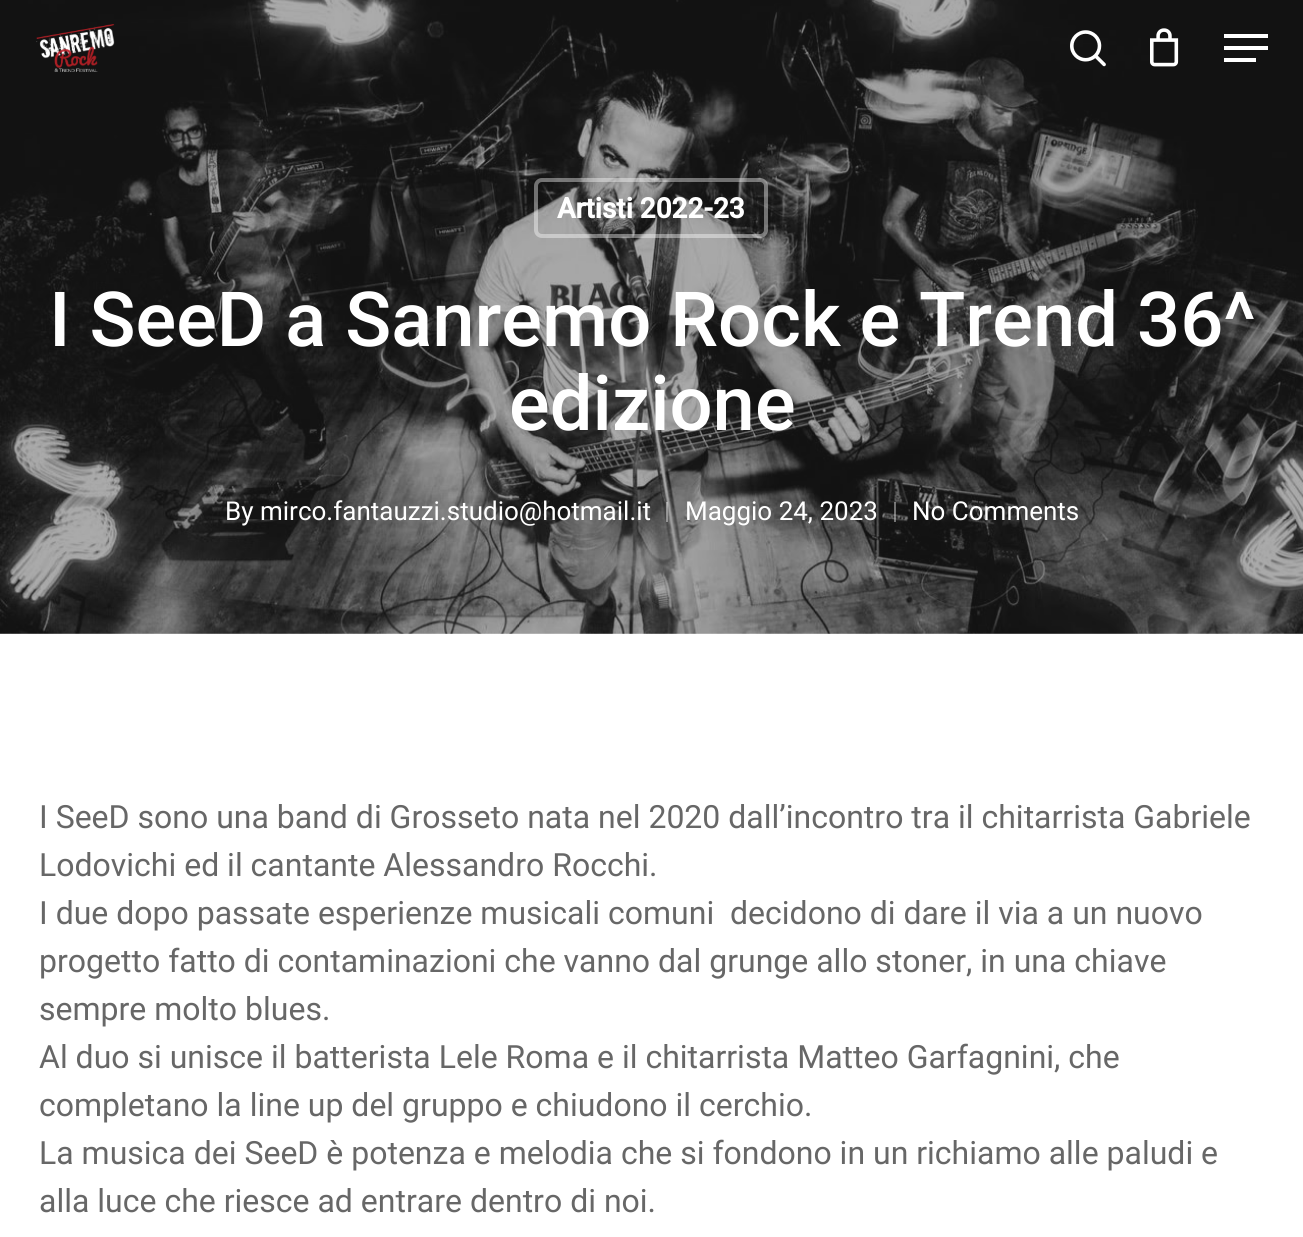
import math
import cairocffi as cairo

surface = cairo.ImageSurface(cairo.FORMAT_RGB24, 1303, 1237)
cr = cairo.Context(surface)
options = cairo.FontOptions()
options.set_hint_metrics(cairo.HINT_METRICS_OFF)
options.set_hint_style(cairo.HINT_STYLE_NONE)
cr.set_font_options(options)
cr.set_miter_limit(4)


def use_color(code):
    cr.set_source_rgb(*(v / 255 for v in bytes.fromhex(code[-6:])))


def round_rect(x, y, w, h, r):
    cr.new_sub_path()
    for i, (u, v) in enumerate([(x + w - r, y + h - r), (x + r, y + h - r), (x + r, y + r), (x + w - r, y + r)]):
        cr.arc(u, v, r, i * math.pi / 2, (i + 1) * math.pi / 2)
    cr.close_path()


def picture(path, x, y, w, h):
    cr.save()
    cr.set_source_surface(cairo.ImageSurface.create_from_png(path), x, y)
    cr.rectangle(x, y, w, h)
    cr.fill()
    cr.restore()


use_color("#ffffff")
cr.paint()
picture("img4.png", 0, 0, 1303, 634)
picture("img1.png", 36, 24, 79, 48)
picture("img2.png", 1070, 30, 36, 37)
picture("img3.png", 1150, 28, 29, 39)
use_color("#ffffff")
cr.rectangle(1224, 34, 44, 4)
cr.fill()
cr.rectangle(1224, 58, 32, 4)
cr.fill()
cr.rectangle(1224, 46, 44, 4)
cr.fill()
round_rect(536, 180, 230, 56, 6)
cr.set_source_rgba(1, 1, 1, 0.4)
cr.set_line_width(4)
cr.stroke()
cr.select_font_face("Roboto", cairo.FONT_SLANT_NORMAL, cairo.FONT_WEIGHT_BOLD)
cr.set_font_size(28)
use_color("#ffffff")
cr.move_to(557, 218)
cr.show_text("Artisti 2022-23")
cr.select_font_face("Roboto Medium")
cr.set_font_size(76)
cr.move_to(49, 346)
cr.show_text("I SeeD a Sanremo Rock e Trend 36^")
cr.move_to(509, 430)
cr.show_text("edizione")
cr.select_font_face("Roboto")
cr.set_font_size(26)
cr.move_to(225, 520)
cr.show_text("By")
cr.move_to(260, 520)
cr.show_text("mirco.fantauzzi.studio@hotmail.it")
cr.set_source_rgba(1, 1, 1, 0.4)
cr.rectangle(666, 502, 2, 20)
cr.fill()
use_color("#ffffff")
cr.move_to(685, 520)
cr.show_text("Maggio 24, 2023")
cr.set_source_rgba(1, 1, 1, 0.4)
cr.rectangle(894, 502, 2, 20)
cr.fill()
use_color("#ffffff")
cr.move_to(912, 520)
cr.show_text("No Comments")
cr.set_font_size(32)
use_color("#676767")
cr.move_to(39, 828)
cr.show_text("I SeeD sono una band di Grosseto nata nel 2020 dall’incontro tra il chitarrista Gabriele")
cr.move_to(39, 876)
cr.show_text("Lodovichi ed il cantante Alessandro Rocchi.")
cr.move_to(39, 924)
cr.show_text("I due dopo passate esperienze musicali comuni  decidono di dare il via a un nuovo")
cr.move_to(39, 972)
cr.show_text("progetto fatto di contaminazioni che vanno dal grunge allo stoner, in una chiave")
cr.move_to(39, 1020)
cr.show_text("sempre molto blues.")
cr.move_to(39, 1068)
cr.show_text("Al duo si unisce il batterista Lele Roma e il chitarrista Matteo Garfagnini, che")
cr.move_to(39, 1116)
cr.show_text("completano la line up del gruppo e chiudono il cerchio.")
cr.move_to(39, 1164)
cr.show_text("La musica dei SeeD è potenza e melodia che si fondono in un richiamo alle paludi e")
cr.move_to(39, 1212)
cr.show_text("alla luce che riesce ad entrare dentro di noi.")
surface.write_to_png("result.png")
